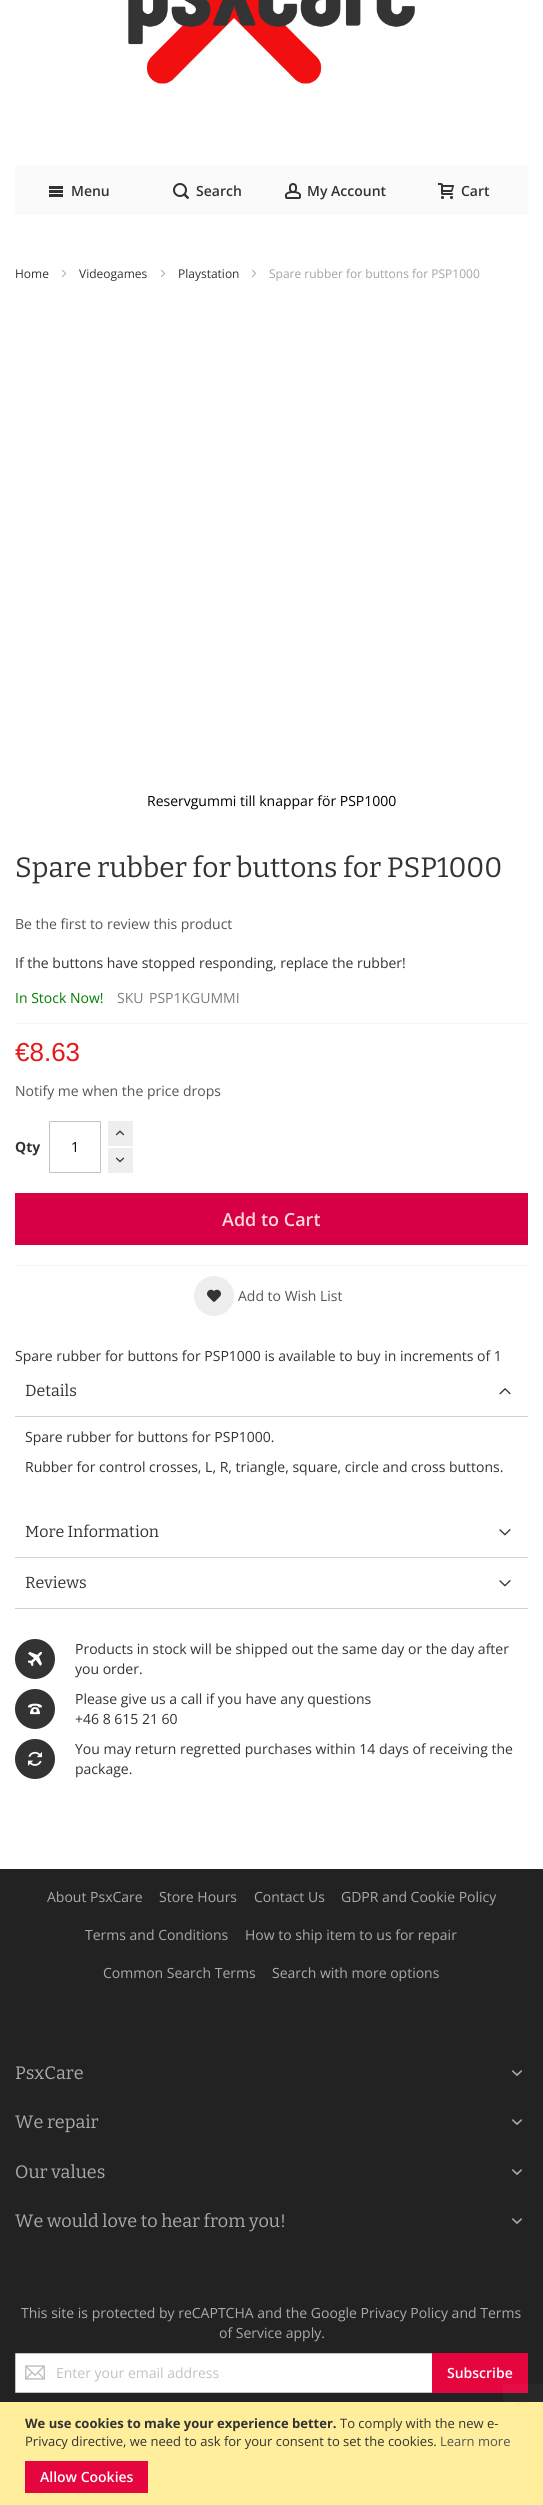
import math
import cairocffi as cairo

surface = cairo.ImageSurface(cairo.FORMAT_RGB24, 543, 2505)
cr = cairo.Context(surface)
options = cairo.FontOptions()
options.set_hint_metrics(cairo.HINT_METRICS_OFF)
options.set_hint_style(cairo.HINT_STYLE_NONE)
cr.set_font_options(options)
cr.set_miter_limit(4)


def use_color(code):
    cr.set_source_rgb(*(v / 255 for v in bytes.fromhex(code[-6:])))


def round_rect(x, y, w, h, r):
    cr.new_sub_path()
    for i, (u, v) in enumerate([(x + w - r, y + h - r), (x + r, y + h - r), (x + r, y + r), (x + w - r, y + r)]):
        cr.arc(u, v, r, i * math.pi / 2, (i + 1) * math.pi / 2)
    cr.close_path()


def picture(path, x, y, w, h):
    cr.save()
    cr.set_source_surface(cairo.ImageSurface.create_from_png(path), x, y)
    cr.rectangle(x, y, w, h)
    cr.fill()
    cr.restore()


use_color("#ffffff")
cr.paint()
picture("img1.png", 128, 0, 287, 84)
use_color("#fafafa")
cr.rectangle(15, 165, 513, 50)
cr.fill()
picture("img2.png", 49, 186, 14, 11)
cr.select_font_face("Open Sans SemiBold")
cr.set_font_size(14)
use_color("#333333")
cr.move_to(71, 196)
cr.show_text("Menu")
picture("img3.png", 173, 183, 16, 16)
cr.move_to(196, 196)
cr.show_text("Search")
picture("img4.png", 285, 183, 16, 16)
cr.move_to(307, 196)
cr.show_text("My Account")
picture("img5.png", 438, 183, 16, 16)
cr.move_to(461, 196)
cr.show_text("Cart")
cr.select_font_face("Open Sans")
cr.set_font_size(12)
cr.move_to(15, 278)
cr.show_text("Home")
picture("img6.png", 61, 269, 6, 9)
cr.move_to(79, 278)
cr.show_text("Videogames")
picture("img6.png", 160, 269, 6, 9)
cr.move_to(178, 278)
cr.show_text("Playstation")
picture("img6.png", 251, 269, 6, 9)
use_color("#a3a3a3")
cr.move_to(269, 278)
cr.show_text("Spare rubber for buttons for PSP1000")
cr.set_font_size(14)
use_color("#000000")
cr.move_to(147, 806)
cr.show_text("Reservgummi till knappar för PSP1000")
cr.select_font_face("Bitter Thin")
cr.set_font_size(28)
use_color("#333333")
cr.move_to(15, 877)
cr.show_text("Spare rubber for buttons for PSP1000")
cr.select_font_face("Open Sans")
cr.set_font_size(14)
use_color("#555555")
cr.move_to(15, 929)
cr.show_text("Be the first to review this product")
use_color("#333333")
cr.move_to(15, 968)
cr.show_text("If the buttons have stopped responding, replace the rubber!")
use_color("#f5f5f5")
cr.rectangle(15, 1023, 513, 1)
cr.fill()
use_color("#008000")
cr.move_to(15, 1003)
cr.show_text("In Stock Now!")
use_color("#7d7d7d")
cr.move_to(117, 1003)
cr.show_text("SKU")
cr.move_to(149, 1003)
cr.show_text("PSP1KGUMMI")
cr.select_font_face("Liberation Sans")
cr.set_font_size(26)
use_color("#e51818")
cr.move_to(15, 1061)
cr.show_text("€8.63")
cr.select_font_face("Open Sans")
cr.set_font_size(14)
use_color("#555555")
cr.move_to(15, 1096)
cr.show_text("Notify me when the price drops")
use_color("#f5f5f5")
cr.rectangle(15, 1265, 513, 1)
cr.fill()
cr.select_font_face("Open Sans", cairo.FONT_SLANT_NORMAL, cairo.FONT_WEIGHT_BOLD)
use_color("#333333")
cr.move_to(15, 1152)
cr.show_text("Qty")
round_rect(49.5, 1121.5, 51, 51, 0.5)
use_color("#c2c2c2")
cr.set_line_width(1)
cr.stroke()
cr.select_font_face("Open Sans")
use_color("#000000")
cr.move_to(71, 1152)
cr.show_text("1")
use_color("#eeeeee")
cr.rectangle(108, 1121, 25, 25)
cr.fill()
picture("img7.png", 115, 1130, 10, 6)
cr.rectangle(108, 1148, 25, 25)
cr.fill()
picture("img8.png", 115, 1157, 10, 6)
use_color("#d70044")
cr.rectangle(15, 1193, 513, 52)
cr.fill()
cr.select_font_face("Open Sans SemiBold")
cr.set_font_size(18)
use_color("#ffd8d9")
cr.move_to(222, 1226)
cr.show_text("Add to Cart")
use_color("#eeeeee")
cr.new_path()
cr.arc(214, 1296, 20, 0, 2 * math.pi)
cr.fill()
picture("img9.png", 207, 1289, 14, 13)
cr.select_font_face("Open Sans")
cr.set_font_size(14)
use_color("#555555")
cr.move_to(238, 1301)
cr.show_text("Add to Wish List")
use_color("#333333")
cr.move_to(15, 1361)
cr.show_text("Spare rubber for buttons for PSP1000 is available to buy in increments of 1")
use_color("#d1d1d1")
cr.rectangle(15, 1416, 513, 1)
cr.fill()
cr.select_font_face("Bitter Thin")
cr.set_font_size(16)
use_color("#333333")
cr.move_to(25, 1396)
cr.show_text("Details")
picture("img10.png", 499, 1388, 12, 7)
cr.select_font_face("Open Sans")
cr.set_font_size(14)
cr.move_to(25, 1442)
cr.show_text("Spare rubber for buttons for PSP1000.")
cr.move_to(25, 1472)
cr.show_text("Rubber for control crosses, L, R, triangle, square, circle and cross buttons.")
use_color("#d1d1d1")
cr.rectangle(15, 1557, 513, 1)
cr.fill()
cr.select_font_face("Bitter Thin")
cr.set_font_size(16)
use_color("#333333")
cr.move_to(25, 1537)
cr.show_text("More Information")
picture("img11.png", 499, 1529, 12, 7)
use_color("#d1d1d1")
cr.rectangle(15, 1608, 513, 1)
cr.fill()
use_color("#333333")
cr.move_to(25, 1588)
cr.show_text("Reviews")
picture("img11.png", 499, 1580, 12, 7)
cr.arc(35, 1659, 20, 0, 2 * math.pi)
cr.fill()
picture("img12.png", 28, 1651, 14, 15)
cr.select_font_face("Open Sans")
cr.set_font_size(14)
cr.move_to(75, 1654)
cr.show_text("Products in stock will be shipped out the same day or the day after")
cr.move_to(75, 1674)
cr.show_text("you order.")
cr.new_path()
cr.arc(35, 1709, 20, 0, 2 * math.pi)
cr.fill()
picture("img13.png", 28, 1703, 14, 12)
cr.move_to(75, 1704)
cr.show_text("Please give us a call if you have any questions")
cr.move_to(75, 1724)
cr.show_text("+46 8 615 21 60")
cr.new_path()
cr.arc(35, 1759, 20, 0, 2 * math.pi)
cr.fill()
picture("img14.png", 28, 1751, 14, 15)
cr.move_to(75, 1754)
cr.show_text("You may return regretted purchases within 14 days of receiving the")
cr.move_to(75, 1774)
cr.show_text("package.")
use_color("#222222")
cr.rectangle(0, 1869, 543, 533)
cr.fill()
use_color("#282828")
cr.rectangle(503, 2384, 40, 18)
cr.fill()
use_color("#aaaaaa")
cr.move_to(47, 1902)
cr.show_text("About PsxCare")
cr.move_to(159, 1902)
cr.show_text("Store Hours")
cr.move_to(254, 1902)
cr.show_text("Contact Us")
cr.move_to(341, 1902)
cr.show_text("GDPR and Cookie Policy")
cr.move_to(85, 1940)
cr.show_text("Terms and Conditions")
cr.move_to(245, 1940)
cr.show_text("How to ship item to us for repair")
cr.move_to(103, 1978)
cr.show_text("Common Search Terms")
cr.move_to(272, 1978)
cr.show_text("Search with more options")
cr.select_font_face("Bitter Thin")
cr.set_font_size(18)
cr.move_to(15, 2079)
cr.show_text("PsxCare")
picture("img15.png", 512, 2070, 10, 6)
cr.move_to(15, 2128)
cr.show_text("We repair")
picture("img15.png", 512, 2119, 10, 6)
cr.move_to(15, 2178)
cr.show_text("Our values")
picture("img15.png", 512, 2169, 10, 6)
cr.move_to(15, 2227)
cr.show_text("We would love to hear from you!")
picture("img15.png", 512, 2218, 10, 6)
cr.select_font_face("Open Sans")
cr.set_font_size(14)
cr.move_to(21, 2318)
cr.show_text("This site is protected by reCAPTCHA and the Google Privacy Policy and Terms")
cr.move_to(219, 2338)
cr.show_text("of Service apply.")
use_color("#ffffff")
round_rect(15.5, 2353.5, 417, 39, 0.5)
cr.fill_preserve()
use_color("#c2c2c2")
cr.stroke()
picture("img16.png", 25, 2365, 20, 15)
cr.move_to(56, 2378)
cr.show_text("Enter your email address")
use_color("#e50640")
cr.rectangle(432, 2353, 96, 40)
cr.fill()
use_color("#e50d45")
cr.rectangle(503, 2384, 25, 9)
cr.fill()
cr.select_font_face("Open Sans SemiBold")
use_color("#ffffff")
cr.move_to(447, 2378)
cr.show_text("Subscribe")
use_color("#ffee9c")
cr.rectangle(0, 2402, 543, 103)
cr.fill()
picture("img17.png", 517, 2402, 12, 5)
cr.select_font_face("Open Sans", cairo.FONT_SLANT_NORMAL, cairo.FONT_WEIGHT_BOLD)
cr.set_font_size(13)
use_color("#333333")
cr.move_to(25, 2428)
cr.show_text("We use cookies to make your experience better.")
cr.select_font_face("Open Sans")
cr.move_to(340, 2428)
cr.show_text("To comply with the new e-")
cr.move_to(25, 2446)
cr.show_text("Privacy directive, we need to ask for your consent to set the cookies.")
use_color("#555555")
cr.move_to(440, 2446)
cr.show_text("Learn more")
use_color("#e50640")
cr.rectangle(25, 2461, 123, 32)
cr.fill()
cr.select_font_face("Open Sans SemiBold")
cr.set_font_size(14)
use_color("#ffffff")
cr.move_to(40, 2482)
cr.show_text("Allow Cookies")
surface.write_to_png("result.png")
